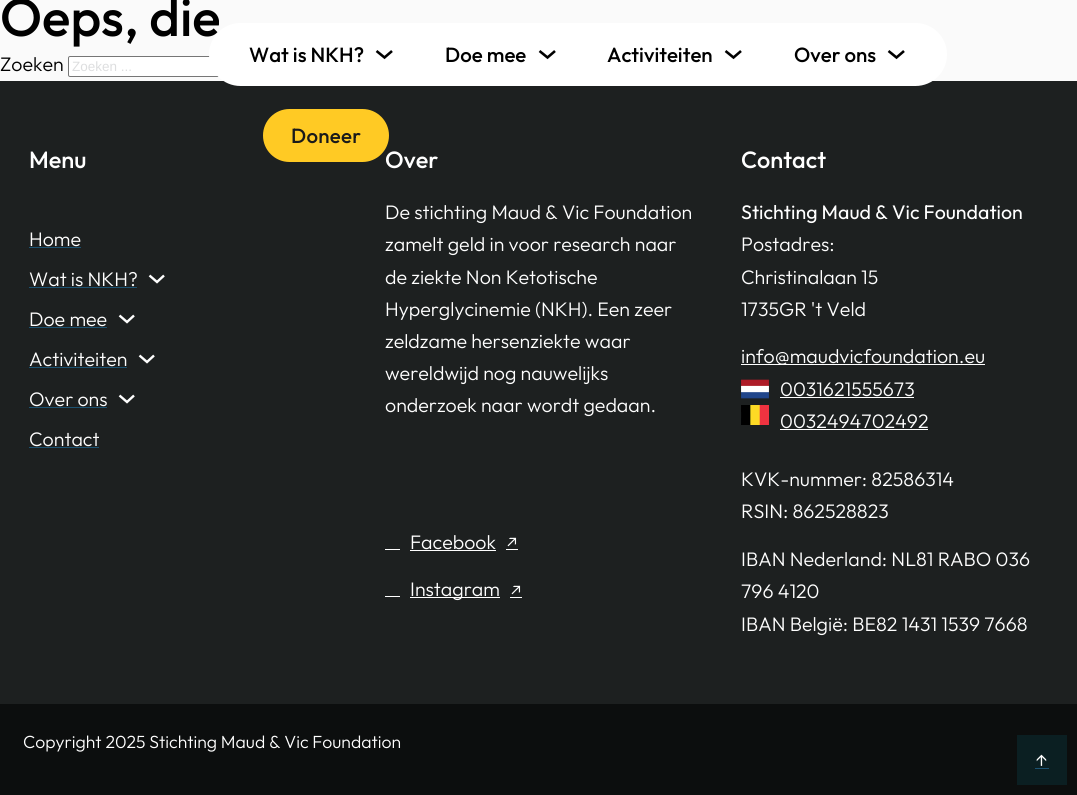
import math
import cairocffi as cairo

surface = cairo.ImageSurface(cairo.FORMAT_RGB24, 1077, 795)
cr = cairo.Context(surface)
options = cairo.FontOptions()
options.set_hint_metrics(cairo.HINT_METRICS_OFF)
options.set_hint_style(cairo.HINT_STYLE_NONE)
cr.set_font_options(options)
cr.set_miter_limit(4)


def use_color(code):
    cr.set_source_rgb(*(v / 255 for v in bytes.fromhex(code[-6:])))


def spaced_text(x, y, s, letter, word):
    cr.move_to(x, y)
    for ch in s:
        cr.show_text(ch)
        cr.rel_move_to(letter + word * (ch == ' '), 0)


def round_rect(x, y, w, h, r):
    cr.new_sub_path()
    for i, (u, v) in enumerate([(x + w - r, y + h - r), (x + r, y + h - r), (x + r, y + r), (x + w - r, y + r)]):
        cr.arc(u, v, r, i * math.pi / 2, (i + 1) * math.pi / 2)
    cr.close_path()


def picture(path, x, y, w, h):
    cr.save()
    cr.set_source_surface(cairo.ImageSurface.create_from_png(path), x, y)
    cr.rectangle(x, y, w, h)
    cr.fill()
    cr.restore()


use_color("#fafafa")
cr.paint()
cr.select_font_face("Outfit Medium")
cr.set_font_size(53)
use_color("#000000")
cr.move_to(0, 36)
cr.show_text("Oeps, die")
cr.select_font_face("Outfit Light")
cr.set_font_size(19.6)
cr.move_to(0, 71)
cr.show_text("Zoeken")
use_color("#ffffff")
round_rect(68.5, 56.5, 184, 20, 1.5)
cr.fill_preserve()
use_color("#767676")
cr.set_line_width(1)
cr.stroke()
cr.select_font_face("Liberation Sans")
cr.set_font_size(13.5)
use_color("#dddedf")
cr.move_to(72, 71)
cr.show_text("Zoeken ...")
use_color("#1d2020")
cr.rectangle(0, 81, 1077, 623)
cr.fill()
use_color("#ffffff")
round_rect(209, 23, 738, 63, 31.5)
cr.fill()
cr.select_font_face("Outfit Medium")
cr.set_font_size(20.5)
use_color("#000000")
cr.move_to(249, 62)
cr.show_text("Wat is NKH?")
cr.new_path()
cr.move_to(376.5, 51)
cr.line_to(384.5, 57.5)
cr.line_to(392, 51)
cr.set_line_width(2.6)
cr.stroke()
cr.move_to(445, 62)
cr.show_text("Doe mee")
cr.new_path()
cr.move_to(539.5, 51)
cr.line_to(547.5, 57.5)
cr.line_to(555, 51)
cr.stroke()
cr.move_to(607, 62)
cr.show_text("Activiteiten")
cr.new_path()
cr.move_to(725.5, 51)
cr.line_to(733.5, 57.5)
cr.line_to(741, 51)
cr.stroke()
cr.move_to(794, 62)
cr.show_text("Over ons")
cr.new_path()
cr.move_to(888.5, 51)
cr.line_to(896.5, 57.5)
cr.line_to(904, 51)
cr.stroke()
cr.set_font_size(23.5)
use_color("#ffffff")
cr.move_to(385, 168)
cr.show_text("Over")
use_color("#ffca24")
round_rect(264, 110, 124, 51, 25.5)
cr.fill_preserve()
cr.set_line_width(2)
cr.stroke()
cr.set_font_size(20.5)
use_color("#1a1a1a")
spaced_text(291, 143, "Doneer", 0.25, 0)
cr.set_font_size(23.5)
use_color("#ffffff")
cr.move_to(29, 168)
cr.show_text("Menu")
cr.select_font_face("Outfit Light")
cr.set_font_size(19.6)
cr.move_to(29, 246)
cr.show_text("Home")
use_color("#1c5271")
cr.rectangle(29, 247, 52, 1)
cr.fill()
use_color("#ffffff")
cr.move_to(29, 286)
cr.show_text("Wat is NKH?")
use_color("#1c5271")
cr.rectangle(29, 287, 108, 1)
cr.fill()
cr.new_path()
cr.move_to(149.5, 275.5)
cr.line_to(157, 282)
cr.line_to(164, 275.5)
use_color("#ffffff")
cr.set_line_width(2.4)
cr.stroke()
cr.move_to(29, 326)
cr.show_text("Doe mee")
use_color("#1c5271")
cr.rectangle(29, 327, 78, 1)
cr.fill()
cr.new_path()
cr.move_to(119.5, 315.5)
cr.line_to(127, 322)
cr.line_to(134, 315.5)
use_color("#ffffff")
cr.stroke()
cr.move_to(29, 366)
cr.show_text("Activiteiten")
use_color("#1c5271")
cr.rectangle(29, 367, 98, 1)
cr.fill()
cr.new_path()
cr.move_to(139.5, 355.5)
cr.line_to(147, 362)
cr.line_to(154, 355.5)
use_color("#ffffff")
cr.stroke()
cr.move_to(29, 406)
cr.show_text("Over ons")
use_color("#1c5271")
cr.rectangle(29, 407, 78, 1)
cr.fill()
cr.new_path()
cr.move_to(119.5, 395.5)
cr.line_to(127, 402)
cr.line_to(134, 395.5)
use_color("#ffffff")
cr.stroke()
cr.move_to(29, 446)
cr.show_text("Contact")
use_color("#1c5271")
cr.rectangle(29, 447, 70, 1)
cr.fill()
use_color("#ffffff")
cr.move_to(385, 219)
cr.show_text("De stichting Maud & Vic Foundation")
cr.move_to(385, 251)
cr.show_text("zamelt geld in voor research naar")
cr.move_to(385, 284)
cr.show_text("de ziekte Non Ketotische")
cr.move_to(385, 316)
cr.show_text("Hyperglycinemie (NKH). Een zeer")
cr.move_to(385, 348)
cr.show_text("zeldzame hersenziekte waar")
cr.move_to(385, 380)
cr.show_text("wereldwijd nog nauwelijks")
cr.move_to(385, 412)
cr.show_text("onderzoek naar wordt gedaan.")
cr.move_to(410, 549)
cr.show_text("Facebook")
cr.rectangle(410, 550, 86, 1)
cr.fill()
cr.rectangle(506, 549, 12, 1)
cr.fill()
cr.set_font_size(17.6)
cr.move_to(506, 548)
cr.show_text("↗")
cr.rectangle(385, 549, 15, 1)
cr.fill()
cr.rectangle(410, 597, 90, 1)
cr.fill()
cr.set_font_size(19.6)
cr.move_to(410, 596)
cr.show_text("Instagram")
cr.rectangle(510, 597, 12, 1)
cr.fill()
cr.set_font_size(17.6)
cr.move_to(510, 596)
cr.show_text("↗")
cr.rectangle(385, 596, 15, 1)
cr.fill()
cr.select_font_face("Outfit Medium")
cr.set_font_size(23.5)
cr.move_to(741, 168)
cr.show_text("Contact")
cr.select_font_face("Outfit")
cr.set_font_size(19.6)
cr.move_to(741, 219)
cr.show_text("Stichting Maud & Vic Foundation")
cr.select_font_face("Outfit Light")
cr.move_to(741, 251)
cr.show_text("Postadres:")
cr.move_to(741, 284)
cr.show_text("Christinalaan 15")
cr.move_to(741, 316)
cr.show_text("1735GR 't Veld")
cr.rectangle(741, 364, 244, 1)
cr.fill()
cr.move_to(741, 363)
cr.show_text("info@maudvicfoundation.eu")
picture("img1.png", 741, 379, 28, 20)
cr.move_to(780, 396)
cr.show_text("0031621555673")
cr.rectangle(780, 397, 134, 1)
cr.fill()
picture("img2.png", 741, 405, 28, 20)
cr.move_to(780, 428)
cr.show_text("0032494702492")
cr.rectangle(780, 429, 148, 1)
cr.fill()
cr.move_to(741, 486)
cr.show_text("KVK-nummer: 82586314")
cr.move_to(741, 518)
cr.show_text("RSIN: 862528823")
cr.move_to(741, 566)
cr.show_text("IBAN Nederland: NL81 RABO 036")
cr.move_to(741, 598)
cr.show_text("796 4120")
cr.move_to(741, 631)
cr.show_text("IBAN België: BE82 1431 1539 7668")
use_color("#0c0e0e")
cr.rectangle(0, 704, 1077, 91)
cr.fill()
cr.set_font_size(17.6)
use_color("#ffffff")
cr.move_to(23, 748)
cr.show_text("Copyright 2025 Stichting Maud & Vic Foundation")
use_color("#0b1f22")
cr.rectangle(1017, 735, 50, 50)
cr.fill()
cr.set_font_size(19.6)
use_color("#ffffff")
cr.move_to(1035, 767)
cr.show_text("↑")
use_color("#1c5271")
cr.rectangle(1035, 768, 14, 1)
cr.fill()
surface.write_to_png("result.png")
